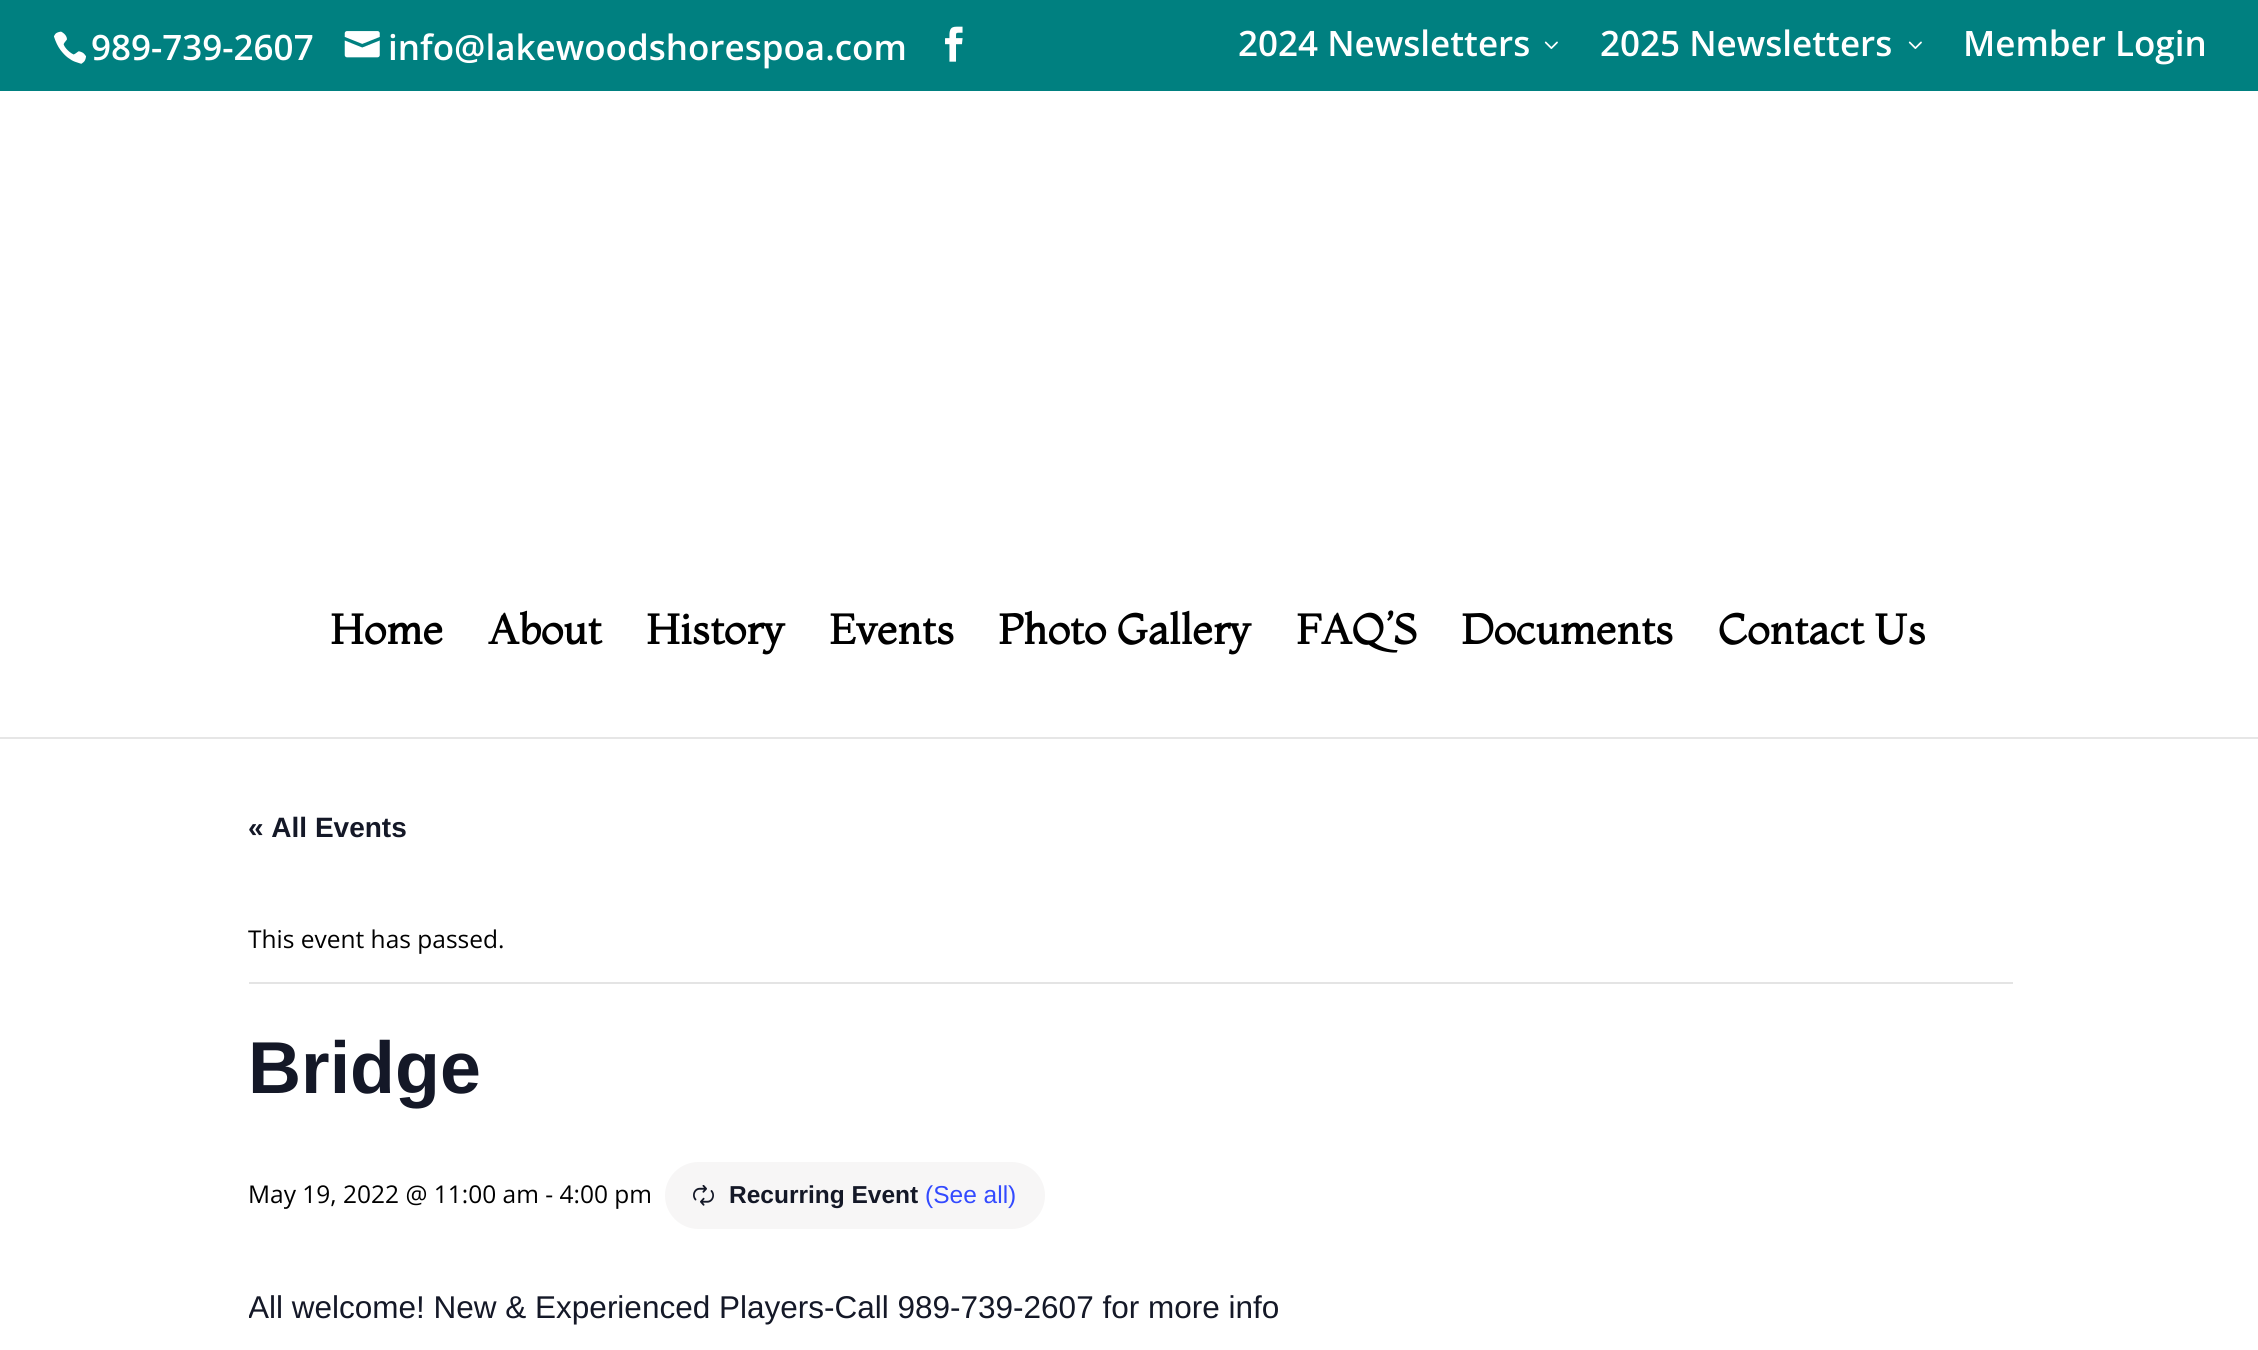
import math
import cairocffi as cairo

surface = cairo.ImageSurface(cairo.FORMAT_RGB24, 2258, 1350)
cr = cairo.Context(surface)
options = cairo.FontOptions()
options.set_hint_metrics(cairo.HINT_METRICS_OFF)
options.set_hint_style(cairo.HINT_STYLE_NONE)
cr.set_font_options(options)
cr.set_miter_limit(4)


def use_color(code):
    cr.set_source_rgb(*(v / 255 for v in bytes.fromhex(code[-6:])))


def round_rect(x, y, w, h, r):
    cr.new_sub_path()
    for i, (u, v) in enumerate([(x + w - r, y + h - r), (x + r, y + h - r), (x + r, y + r), (x + w - r, y + r)]):
        cr.arc(u, v, r, i * math.pi / 2, (i + 1) * math.pi / 2)
    cr.close_path()


def picture(path, x, y, w, h):
    cr.save()
    cr.set_source_surface(cairo.ImageSurface.create_from_png(path), x, y)
    cr.rectangle(x, y, w, h)
    cr.fill()
    cr.restore()


use_color("#ffffff")
cr.paint()
use_color("#008080")
cr.rectangle(0, 0, 2258, 91)
cr.fill()
picture("img1.png", 54, 31, 32, 33)
cr.select_font_face("Open Sans SemiBold")
cr.set_font_size(35)
use_color("#ffffff")
cr.move_to(91, 60)
cr.show_text("989-739-2607")
picture("img2.png", 344, 31, 36, 27)
cr.move_to(388, 60)
cr.show_text("info@lakewoodshorespoa.com")
picture("img3.png", 945, 26, 18, 36)
cr.move_to(1238, 56)
cr.show_text("2024 Newsletters")
picture("img4.png", 1544, 41, 14, 8)
cr.move_to(1600, 56)
cr.show_text("2025 Newsletters")
picture("img4.png", 1908, 41, 14, 8)
cr.move_to(1963, 56)
cr.show_text("Member Login")
use_color("#e6e6e6")
cr.rectangle(0, 737, 2258, 2)
cr.fill()
cr.select_font_face("Montaga", cairo.FONT_SLANT_NORMAL, cairo.FONT_WEIGHT_BOLD)
cr.set_font_size(42)
use_color("#000000")
cr.move_to(330, 644)
cr.show_text("Home")
cr.move_to(488, 644)
cr.show_text("About")
cr.move_to(646, 644)
cr.show_text("History")
cr.move_to(829, 644)
cr.show_text("Events")
cr.move_to(998, 644)
cr.show_text("Photo Gallery")
cr.move_to(1296, 644)
cr.show_text("FAQ’S")
cr.move_to(1461, 644)
cr.show_text("Documents")
cr.move_to(1718, 644)
cr.show_text("Contact Us")
cr.select_font_face("Liberation Sans", cairo.FONT_SLANT_NORMAL, cairo.FONT_WEIGHT_BOLD)
cr.set_font_size(28)
use_color("#141827")
cr.move_to(248, 837)
cr.show_text("« All Events")
use_color("#e4e4e4")
cr.rectangle(249, 982, 1764, 2)
cr.fill()
cr.select_font_face("Open Sans")
cr.set_font_size(24.5)
use_color("#000000")
cr.move_to(248, 948)
cr.show_text("This event has passed.")
cr.select_font_face("Liberation Sans", cairo.FONT_SLANT_NORMAL, cairo.FONT_WEIGHT_BOLD)
cr.set_font_size(73.5)
use_color("#141827")
cr.move_to(248, 1093)
cr.show_text("Bridge")
cr.select_font_face("Open Sans")
cr.set_font_size(24.5)
use_color("#000000")
cr.move_to(248, 1203)
cr.show_text("May 19, 2022 @ 11:00 am - 4:00 pm")
use_color("#f7f6f6")
round_rect(665, 1162, 380, 67, 33.5)
cr.fill()
picture("img5.png", 693, 1185, 21, 21)
cr.select_font_face("Liberation Sans", cairo.FONT_SLANT_NORMAL, cairo.FONT_WEIGHT_BOLD)
use_color("#141827")
cr.move_to(729, 1203)
cr.show_text("Recurring Event")
cr.select_font_face("Liberation Sans")
use_color("#334aff")
cr.move_to(925, 1203)
cr.show_text("(See all)")
cr.save()
cr.rectangle(249, 1285, 1764, 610)
cr.clip()
cr.set_font_size(31.5)
use_color("#141827")
cr.move_to(248, 1318)
cr.show_text("All welcome! New & Experienced Players-Call 989-739-2607 for more info")
cr.restore()
surface.write_to_png("result.png")
